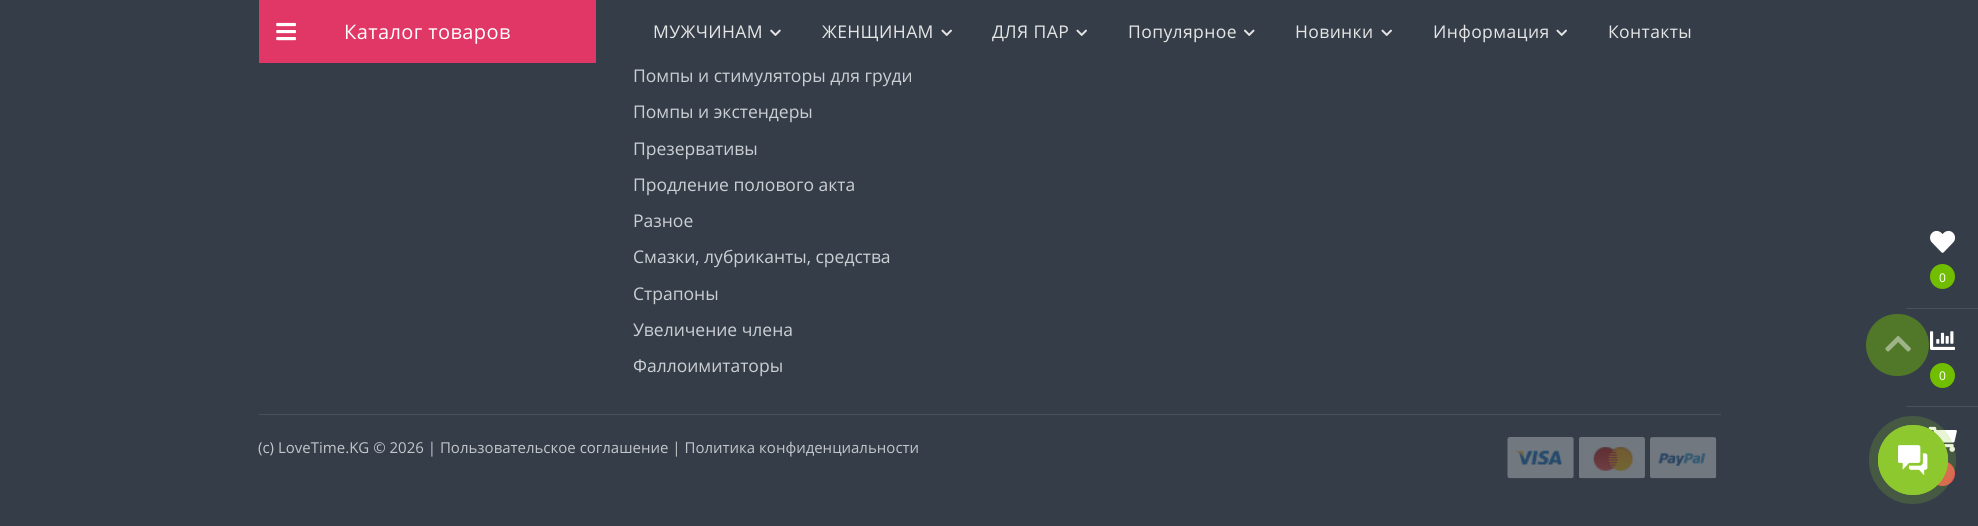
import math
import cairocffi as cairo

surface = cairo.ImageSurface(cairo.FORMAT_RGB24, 1978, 526)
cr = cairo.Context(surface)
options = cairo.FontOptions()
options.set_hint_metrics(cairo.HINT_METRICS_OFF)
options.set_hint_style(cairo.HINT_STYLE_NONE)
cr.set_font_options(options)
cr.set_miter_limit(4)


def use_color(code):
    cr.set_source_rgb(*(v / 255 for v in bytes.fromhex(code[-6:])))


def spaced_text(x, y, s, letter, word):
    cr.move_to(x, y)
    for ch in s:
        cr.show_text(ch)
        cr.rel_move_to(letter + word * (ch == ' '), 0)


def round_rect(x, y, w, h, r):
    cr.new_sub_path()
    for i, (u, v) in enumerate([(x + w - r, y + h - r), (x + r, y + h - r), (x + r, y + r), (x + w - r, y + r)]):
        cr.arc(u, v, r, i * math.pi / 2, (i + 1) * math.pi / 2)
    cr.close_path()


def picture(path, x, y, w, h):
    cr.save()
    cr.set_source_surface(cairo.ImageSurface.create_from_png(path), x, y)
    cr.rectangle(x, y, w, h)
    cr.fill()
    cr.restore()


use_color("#353e48")
cr.paint()
use_color("#e13766")
cr.rectangle(259, 0, 337, 63)
cr.fill()
picture("img1.png", 276, 22, 20, 19)
cr.select_font_face("Open Sans")
cr.set_font_size(20)
use_color("#ffffff")
spaced_text(344, 39, "Каталог товаров", 0.4, 0)
cr.set_font_size(17.5)
use_color("#e5e5e5")
spaced_text(653, 38, "МУЖЧИНАМ", 0.4, 0)
picture("img2.png", 770, 29, 11, 7)
spaced_text(822, 38, "ЖЕНЩИНАМ", 0.4, 0)
picture("img3.png", 941, 29, 11, 7)
spaced_text(992, 38, "ДЛЯ ПАР", 0.4, 0)
picture("img3.png", 1076, 29, 11, 7)
spaced_text(1128, 38, "Популярное", 0.4, 0)
picture("img4.png", 1243, 29, 12, 7)
spaced_text(1295, 38, "Новинки", 0.4, 0)
picture("img3.png", 1381, 29, 11, 7)
spaced_text(1433, 38, "Информация", 0.4, 0)
picture("img3.png", 1556, 29, 11, 7)
spaced_text(1608, 38, "Контакты", 0.4, 0)
use_color("#cbcfd4")
cr.move_to(633, 82)
cr.show_text("Помпы и стимуляторы для груди")
cr.move_to(633, 118)
cr.show_text("Помпы и экстендеры")
cr.move_to(633, 155)
cr.show_text("Презервативы")
cr.move_to(633, 191)
cr.show_text("Продление полового акта")
cr.move_to(633, 227)
cr.show_text("Разное")
cr.move_to(633, 263)
cr.show_text("Смазки, лубриканты, средства")
cr.move_to(633, 300)
cr.show_text("Страпоны")
cr.move_to(633, 336)
cr.show_text("Увеличение члена")
cr.move_to(633, 372)
cr.show_text("Фаллоимитаторы")
use_color("#49515a")
cr.rectangle(259, 414, 1462, 1)
cr.fill()
cr.set_font_size(15)
use_color("#c2c6cb")
cr.move_to(258, 453)
cr.show_text("(c) LoveTime.KG © 2026 | Пользовательское соглашение | Политика конфиденциальности")
picture("img5.png", 1507, 437, 67, 42)
picture("img6.png", 1579, 437, 66, 42)
picture("img7.png", 1650, 437, 67, 42)
use_color("#507828")
round_rect(1866, 314, 63, 62, 31)
cr.fill()
picture("img8.png", 1885, 336, 26, 16)
picture("img9.png", 1930, 230, 26, 23)
use_color("#71be00")
cr.arc(1942.5, 276.5, 12.5, 0, 2 * math.pi)
cr.fill()
cr.set_font_size(12)
use_color("#ffffff")
cr.move_to(1939, 282)
cr.show_text("0")
use_color("#49515a")
cr.rectangle(1906, 308, 72, 1)
cr.fill()
picture("img10.png", 1930, 331, 25, 19)
use_color("#71be00")
cr.arc(1942.5, 375.5, 12.5, 0, 2 * math.pi)
cr.fill()
use_color("#ffffff")
cr.move_to(1939, 380)
cr.show_text("0")
use_color("#49515a")
cr.rectangle(1906, 406, 72, 1)
cr.fill()
picture("img11.png", 1928, 426, 29, 26)
use_color("#eb5757")
cr.arc(1942.5, 473.5, 12.5, 0, 2 * math.pi)
cr.fill()
cr.set_source_rgba(0.557, 0.784, 0.184, 0.2)
round_rect(1869, 416, 87, 88, 43.5)
cr.fill()
cr.arc(1913, 460, 34.5, 0, 2 * math.pi)
use_color("#8ec82f")
cr.set_line_width(1)
cr.stroke()
cr.arc(1913, 460, 35, 0, 2 * math.pi)
cr.fill()
picture("img12.png", 1898, 445, 30, 30)
surface.write_to_png("result.png")
